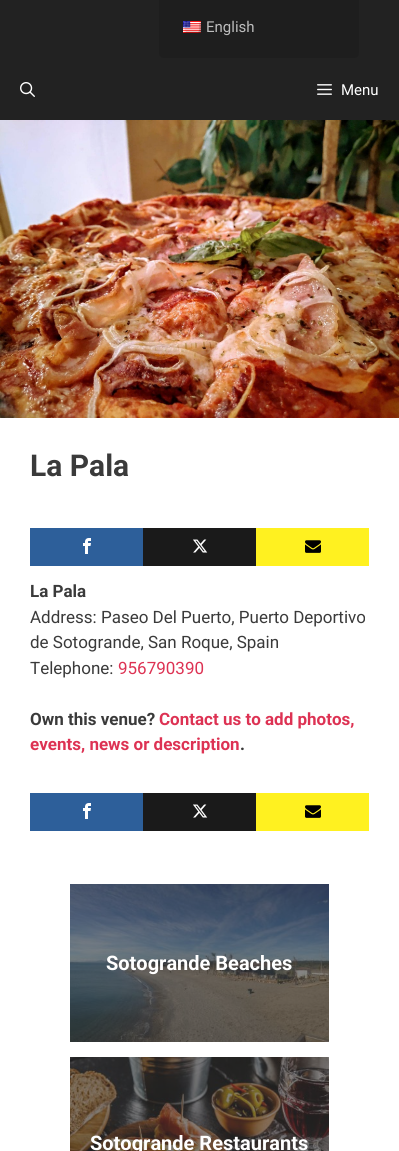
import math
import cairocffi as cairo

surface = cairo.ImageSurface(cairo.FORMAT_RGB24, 399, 1151)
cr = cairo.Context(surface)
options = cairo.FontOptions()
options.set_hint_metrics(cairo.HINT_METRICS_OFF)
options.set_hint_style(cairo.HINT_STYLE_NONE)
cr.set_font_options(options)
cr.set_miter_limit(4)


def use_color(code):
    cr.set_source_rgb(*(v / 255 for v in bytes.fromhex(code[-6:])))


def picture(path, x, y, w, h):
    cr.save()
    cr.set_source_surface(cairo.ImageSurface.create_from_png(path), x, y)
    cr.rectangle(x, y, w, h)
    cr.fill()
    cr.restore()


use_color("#222222")
cr.paint()
use_color("#1e1e1e")
cr.new_path()
cr.move_to(159, 0)
cr.line_to(359, 0)
cr.line_to(359, 53)
cr.curve_to(359, 56, 357, 58, 354, 58)
cr.line_to(164, 58)
cr.curve_to(161, 58, 159, 56, 159, 53)
cr.close_path()
cr.fill()
picture("img1.png", 183, 21, 18, 12)
cr.select_font_face("Roboto")
cr.set_font_size(15)
use_color("#bdbdbd")
cr.move_to(206, 32)
cr.show_text("English")
picture("img2.png", 20, 82, 15, 15)
picture("img3.png", 317, 84, 15, 11)
use_color("#ffffff")
cr.move_to(341, 95)
cr.show_text("Menu")
picture("img4.png", 0, 120, 399, 298)
cr.rectangle(0, 418, 399, 733)
cr.fill()
cr.select_font_face("Roboto", cairo.FONT_SLANT_NORMAL, cairo.FONT_WEIGHT_BOLD)
cr.set_font_size(30)
use_color("#3a3a3a")
cr.move_to(30, 476)
cr.show_text("La Pala")
use_color("#2d5f9a")
cr.rectangle(30, 528, 113, 38)
cr.fill()
picture("img5.png", 83, 538, 8, 16)
use_color("#1a1a1a")
cr.rectangle(143, 528, 113, 38)
cr.fill()
picture("img6.png", 193, 539, 15, 14)
use_color("#fff120")
cr.rectangle(256, 528, 113, 38)
cr.fill()
picture("img7.png", 305, 540, 16, 13)
cr.set_font_size(17)
use_color("#3a3a3a")
cr.move_to(30, 597)
cr.show_text("La Pala")
cr.select_font_face("Roboto")
cr.move_to(30, 623)
cr.show_text("Address: Paseo Del Puerto, Puerto Deportivo")
cr.move_to(30, 648)
cr.show_text("de Sotogrande, San Roque, Spain")
cr.move_to(30, 674)
cr.show_text("Telephone:")
use_color("#dd3253")
cr.move_to(118, 674)
cr.show_text("956790390")
cr.select_font_face("Roboto", cairo.FONT_SLANT_NORMAL, cairo.FONT_WEIGHT_BOLD)
use_color("#3a3a3a")
cr.move_to(30, 725)
cr.show_text("Own this venue?")
use_color("#dd3253")
cr.move_to(159, 725)
cr.show_text("Contact us to add photos,")
cr.move_to(30, 750)
cr.show_text("events, news or description")
use_color("#3a3a3a")
cr.move_to(240, 750)
cr.show_text(".")
use_color("#2d5f9a")
cr.rectangle(30, 793, 113, 38)
cr.fill()
picture("img5.png", 83, 803, 8, 16)
use_color("#1a1a1a")
cr.rectangle(143, 793, 113, 38)
cr.fill()
picture("img6.png", 193, 804, 15, 14)
use_color("#fff120")
cr.rectangle(256, 793, 113, 38)
cr.fill()
picture("img7.png", 305, 805, 16, 13)
picture("img8.png", 70, 884, 259, 158)
cr.set_font_size(20)
use_color("#ffffff")
cr.move_to(106, 970)
cr.show_text("Sotogrande Beaches")
picture("img9.png", 70, 1057, 259, 94)
cr.move_to(90, 1150)
cr.show_text("Sotogrande Restaurants")
surface.write_to_png("result.png")
